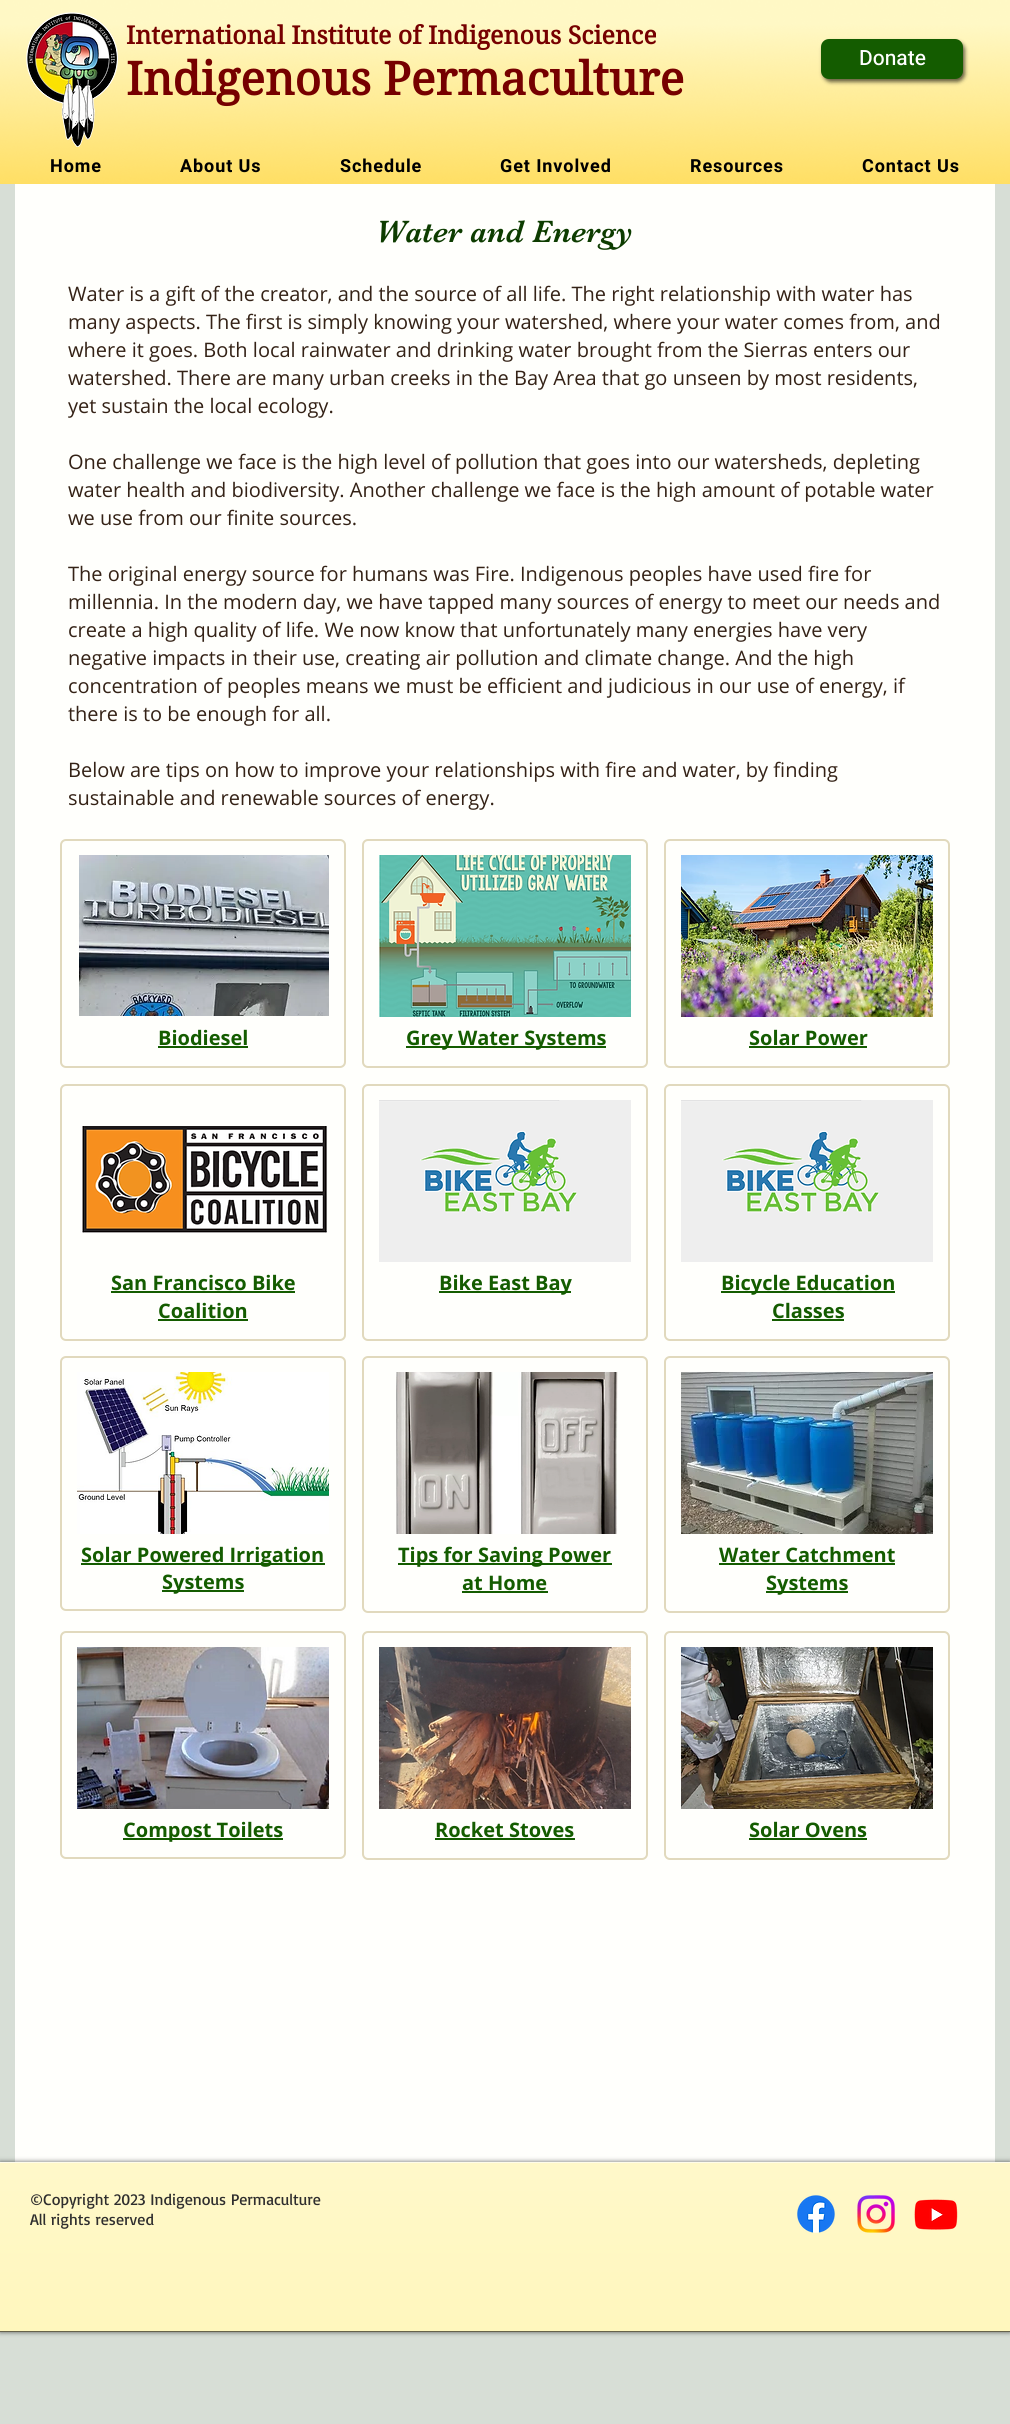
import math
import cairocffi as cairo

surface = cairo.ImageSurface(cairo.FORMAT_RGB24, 1010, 2424)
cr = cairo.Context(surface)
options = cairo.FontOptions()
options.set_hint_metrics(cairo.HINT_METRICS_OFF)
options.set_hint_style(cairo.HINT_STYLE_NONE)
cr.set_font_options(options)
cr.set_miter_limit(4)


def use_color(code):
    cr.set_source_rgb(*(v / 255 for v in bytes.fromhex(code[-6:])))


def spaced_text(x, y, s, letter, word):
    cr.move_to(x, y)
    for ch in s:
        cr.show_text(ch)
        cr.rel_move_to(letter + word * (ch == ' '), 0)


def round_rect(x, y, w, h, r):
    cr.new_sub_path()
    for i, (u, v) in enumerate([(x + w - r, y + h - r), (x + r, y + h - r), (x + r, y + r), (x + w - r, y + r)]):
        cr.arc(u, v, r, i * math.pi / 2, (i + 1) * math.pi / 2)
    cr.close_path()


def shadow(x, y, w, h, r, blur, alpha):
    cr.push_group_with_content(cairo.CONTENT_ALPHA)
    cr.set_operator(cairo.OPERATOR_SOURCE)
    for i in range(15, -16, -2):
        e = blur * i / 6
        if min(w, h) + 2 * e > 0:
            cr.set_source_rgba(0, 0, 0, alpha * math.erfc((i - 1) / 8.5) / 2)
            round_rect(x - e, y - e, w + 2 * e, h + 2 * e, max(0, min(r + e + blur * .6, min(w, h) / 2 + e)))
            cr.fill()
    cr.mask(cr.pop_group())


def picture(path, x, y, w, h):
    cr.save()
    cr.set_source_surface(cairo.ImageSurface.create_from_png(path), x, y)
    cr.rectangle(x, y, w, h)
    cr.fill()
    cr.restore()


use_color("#d7ded6")
cr.paint()
picture("img1.png", 0, 0, 554, 184)
picture("img2.png", 554, 0, 456, 184)
picture("img3.png", 26, 12, 92, 135)
cr.select_font_face("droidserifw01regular", cairo.FONT_SLANT_NORMAL, cairo.FONT_WEIGHT_BOLD)
cr.set_font_size(25)
use_color("#760000")
cr.move_to(126, 44)
cr.show_text("International Institute of Indigenous Science")
cr.set_font_size(46)
cr.move_to(126, 95)
cr.show_text("Indigenous Permaculture")
use_color("#000000")
shadow(823, 42, 142, 40, 8, 2, 0.6)
use_color("#145c00")
round_rect(821, 39, 142, 40, 8)
cr.fill()
cr.select_font_face("Heebo Medium")
cr.set_font_size(21)
use_color("#ffffff")
cr.move_to(859, 65)
cr.show_text("Donate")
cr.select_font_face("Heebo", cairo.FONT_SLANT_NORMAL, cairo.FONT_WEIGHT_BOLD)
cr.set_font_size(18)
use_color("#000000")
spaced_text(50, 172, "Home", 0.9, 0)
spaced_text(180, 172, "About Us", 0.9, 0)
spaced_text(340, 172, "Schedule", 0.9, 0)
spaced_text(500, 172, "Get Involved", 0.9, 0)
spaced_text(690, 172, "Resources", 0.9, 0)
spaced_text(862, 172, "Contact Us", 0.9, 0)
use_color("#fffffc")
cr.rectangle(15, 184, 980, 1978)
cr.fill()
cr.select_font_face("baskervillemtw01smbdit")
cr.set_font_size(32)
use_color("#0d3c00")
cr.move_to(376, 242)
cr.show_text("Water and Energy")
cr.select_font_face("Open Sans")
cr.set_font_size(20)
use_color("#342216")
cr.move_to(68, 301)
cr.show_text("Water is a gift of the creator, and the source of all life. The right relationship with water has")
cr.move_to(68, 329)
cr.show_text("many aspects. The first is simply knowing your watershed, where your water comes from, and")
cr.move_to(68, 357)
cr.show_text("where it goes. Both local rainwater and drinking water brought from the Sierras enters our")
cr.move_to(68, 385)
cr.show_text("watershed. There are many urban creeks in the Bay Area that go unseen by most residents,")
cr.move_to(68, 413)
cr.show_text("yet sustain the local ecology.")
cr.move_to(68, 469)
cr.show_text("One challenge we face is the high level of pollution that goes into our watersheds, depleting")
cr.move_to(68, 497)
cr.show_text("water health and biodiversity. Another challenge we face is the high amount of potable water")
cr.move_to(68, 525)
cr.show_text("we use from our finite sources.")
cr.move_to(68, 581)
cr.show_text("The original energy source for humans was Fire. Indigenous peoples have used fire for")
cr.move_to(68, 609)
cr.show_text("millennia. In the modern day, we have tapped many sources of energy to meet our needs and")
cr.move_to(68, 637)
cr.show_text("create a high quality of life. We now know that unfortunately many energies have very")
cr.move_to(68, 665)
cr.show_text("negative impacts in their use, creating air pollution and climate change. And the high")
cr.move_to(68, 693)
cr.show_text("concentration of peoples means we must be efficient and judicious in our use of energy, if")
cr.move_to(68, 721)
cr.show_text("there is to be enough for all.")
cr.move_to(68, 777)
cr.show_text("Below are tips on how to improve your relationships with fire and water, by finding")
cr.move_to(68, 805)
cr.show_text("sustainable and renewable sources of energy.")
round_rect(61, 840, 284, 227, 5)
use_color("#e1d9bd")
cr.stroke()
picture("img4.png", 79, 855, 250, 161)
cr.select_font_face("Open Sans", cairo.FONT_SLANT_NORMAL, cairo.FONT_WEIGHT_BOLD)
use_color("#145c00")
cr.move_to(158, 1045)
cr.show_text("Biodiesel")
cr.rectangle(158, 1046, 90, 2)
cr.fill()
round_rect(363, 840, 284, 227, 5)
use_color("#e1d9bd")
cr.stroke()
picture("img5.png", 379, 855, 252, 162)
use_color("#145c00")
cr.rectangle(406, 1046, 200, 2)
cr.fill()
cr.move_to(406, 1045)
cr.show_text("Grey Water Systems")
round_rect(665, 840, 284, 227, 5)
use_color("#e1d9bd")
cr.stroke()
picture("img6.png", 681, 855, 252, 162)
use_color("#145c00")
cr.move_to(749, 1045)
cr.show_text("Solar Power")
cr.rectangle(749, 1046, 118, 2)
cr.fill()
round_rect(61, 1085, 284, 255, 5)
use_color("#e1d9bd")
cr.stroke()
picture("img7.png", 80, 1126, 247, 107)
use_color("#145c00")
cr.move_to(111, 1290)
cr.show_text("San Francisco Bike")
cr.rectangle(111, 1291, 184, 2)
cr.fill()
cr.move_to(158, 1318)
cr.show_text("Coalition")
cr.rectangle(158, 1319, 90, 2)
cr.fill()
round_rect(363, 1085, 284, 255, 5)
use_color("#e1d9bd")
cr.stroke()
picture("img8.png", 379, 1100, 252, 162)
use_color("#145c00")
cr.rectangle(439, 1291, 132, 2)
cr.fill()
cr.move_to(439, 1290)
cr.show_text("Bike East Bay")
round_rect(665, 1085, 284, 255, 5)
use_color("#e1d9bd")
cr.stroke()
picture("img8.png", 681, 1100, 252, 162)
use_color("#145c00")
cr.rectangle(721, 1291, 174, 2)
cr.fill()
cr.move_to(721, 1290)
cr.show_text("Bicycle Education")
cr.move_to(772, 1318)
cr.show_text("Classes")
cr.rectangle(772, 1319, 72, 2)
cr.fill()
round_rect(61, 1357, 284, 253, 5)
use_color("#e1d9bd")
cr.stroke()
picture("img9.png", 77, 1372, 252, 162)
use_color("#145c00")
cr.rectangle(81, 1563, 244, 2)
cr.fill()
cr.move_to(81, 1562)
cr.show_text("Solar Powered Irrigation")
cr.rectangle(162, 1590, 82, 2)
cr.fill()
cr.move_to(162, 1589)
cr.show_text("Systems")
round_rect(363, 1357, 284, 255, 5)
use_color("#e1d9bd")
cr.stroke()
picture("img10.png", 396, 1372, 222, 162)
use_color("#145c00")
cr.rectangle(398, 1563, 214, 2)
cr.fill()
cr.move_to(398, 1562)
cr.show_text("Tips for Saving Power")
cr.move_to(462, 1590)
cr.show_text("at Home")
cr.rectangle(462, 1591, 86, 2)
cr.fill()
round_rect(665, 1357, 284, 255, 5)
use_color("#e1d9bd")
cr.stroke()
picture("img11.png", 681, 1372, 252, 162)
use_color("#145c00")
cr.move_to(719, 1562)
cr.show_text("Water Catchment")
cr.rectangle(719, 1563, 176, 2)
cr.fill()
cr.rectangle(766, 1591, 82, 2)
cr.fill()
cr.move_to(766, 1590)
cr.show_text("Systems")
round_rect(61, 1632, 284, 226, 5)
use_color("#e1d9bd")
cr.stroke()
picture("img12.png", 77, 1647, 252, 162)
use_color("#145c00")
cr.rectangle(123, 1838, 160, 2)
cr.fill()
cr.move_to(123, 1837)
cr.show_text("Compost Toilets")
round_rect(363, 1632, 284, 227, 5)
use_color("#e1d9bd")
cr.stroke()
picture("img13.png", 379, 1647, 252, 162)
use_color("#145c00")
cr.move_to(435, 1837)
cr.show_text("Rocket Stoves")
cr.rectangle(435, 1838, 140, 2)
cr.fill()
round_rect(665, 1632, 284, 227, 5)
use_color("#e1d9bd")
cr.stroke()
picture("img14.png", 681, 1647, 252, 162)
use_color("#145c00")
cr.move_to(749, 1837)
cr.show_text("Solar Ovens")
cr.rectangle(749, 1838, 118, 2)
cr.fill()
use_color("#000000")
shadow(0, 2162, 1010, 170, 0, 2.5, 0.6)
use_color("#fff6b7")
cr.rectangle(0, 2163, 1010, 168)
cr.fill()
picture("img15.png", 0, 2163, 1010, 168)
use_color("#66634c")
cr.rectangle(0, 2331, 1010, 1)
cr.fill()
use_color("#fffcea")
cr.rectangle(0, 2162, 1010, 1)
cr.fill()
cr.select_font_face("Basic")
cr.set_font_size(16)
use_color("#2f2e2e")
cr.move_to(30, 2205)
cr.show_text("©Copyright 2023 Indigenous Permaculture")
cr.move_to(30, 2225)
cr.show_text("All rights reserved")
picture("img16.png", 797, 2195, 38, 38)
picture("img17.png", 857, 2195, 38, 38)
picture("img18.png", 914, 2199, 44, 31)
surface.write_to_png("result.png")
